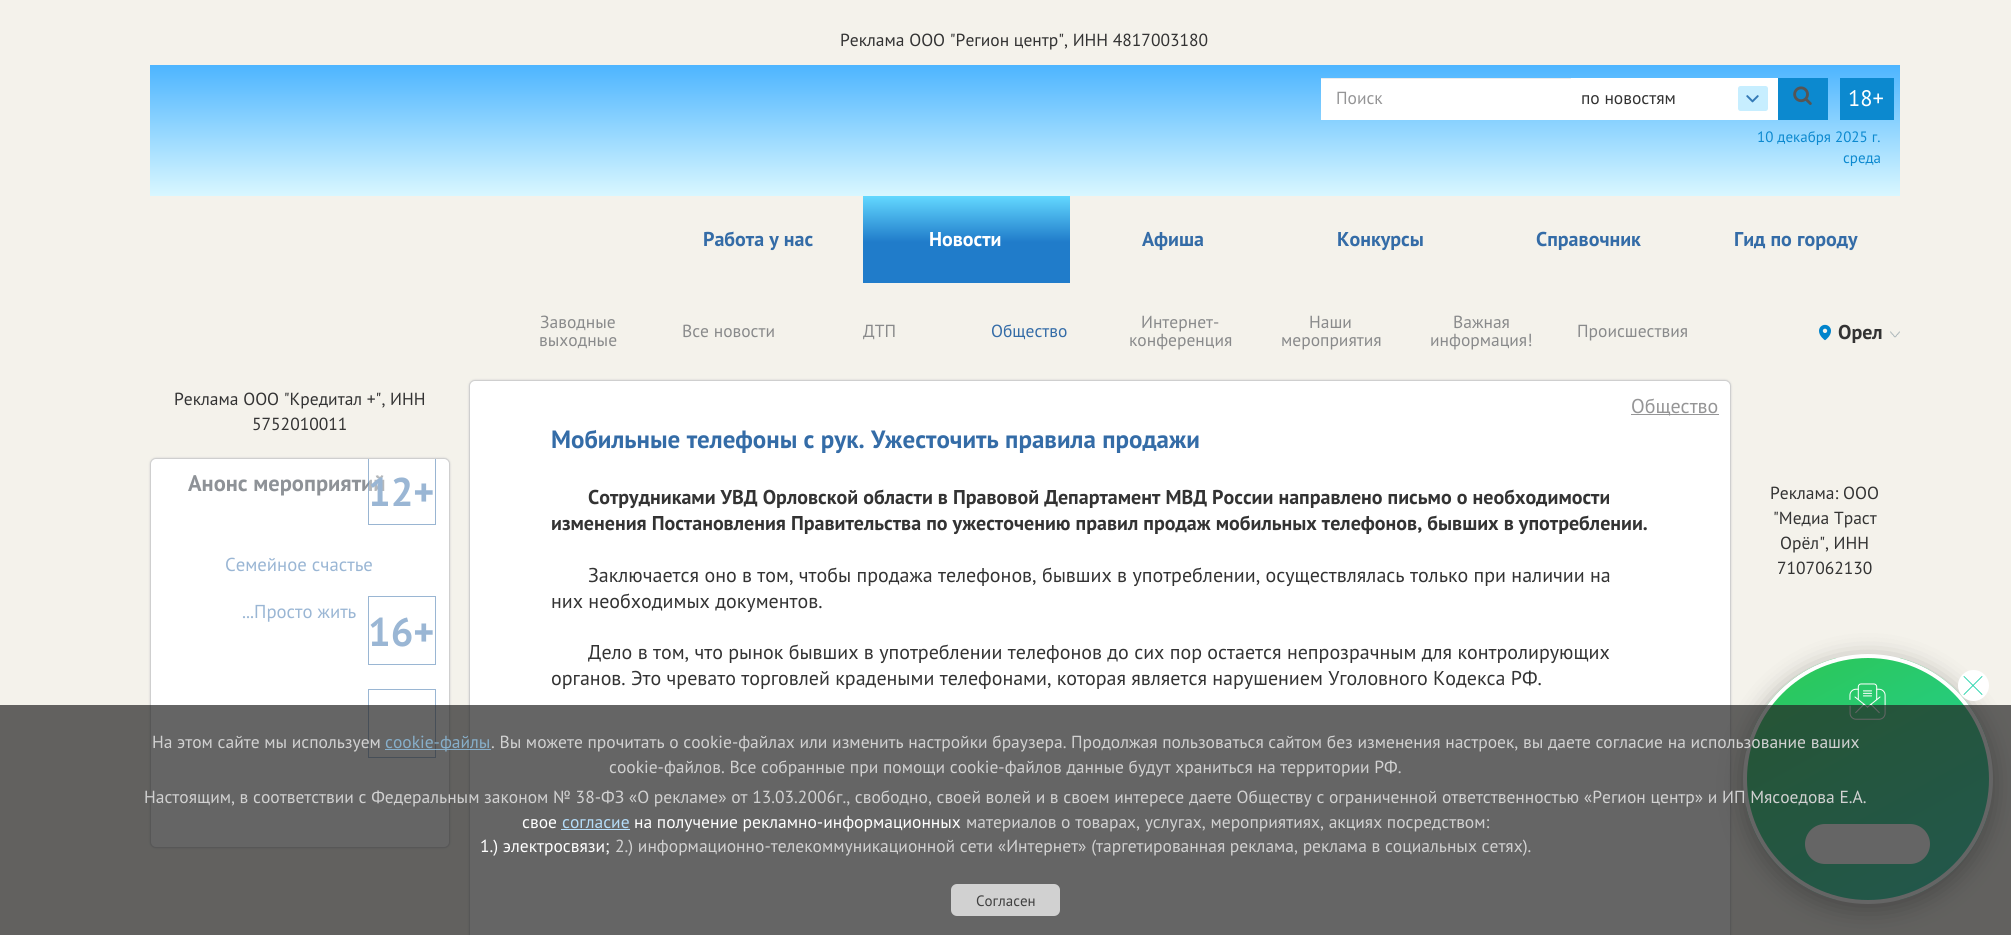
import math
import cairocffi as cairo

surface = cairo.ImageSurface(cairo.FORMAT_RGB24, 2011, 935)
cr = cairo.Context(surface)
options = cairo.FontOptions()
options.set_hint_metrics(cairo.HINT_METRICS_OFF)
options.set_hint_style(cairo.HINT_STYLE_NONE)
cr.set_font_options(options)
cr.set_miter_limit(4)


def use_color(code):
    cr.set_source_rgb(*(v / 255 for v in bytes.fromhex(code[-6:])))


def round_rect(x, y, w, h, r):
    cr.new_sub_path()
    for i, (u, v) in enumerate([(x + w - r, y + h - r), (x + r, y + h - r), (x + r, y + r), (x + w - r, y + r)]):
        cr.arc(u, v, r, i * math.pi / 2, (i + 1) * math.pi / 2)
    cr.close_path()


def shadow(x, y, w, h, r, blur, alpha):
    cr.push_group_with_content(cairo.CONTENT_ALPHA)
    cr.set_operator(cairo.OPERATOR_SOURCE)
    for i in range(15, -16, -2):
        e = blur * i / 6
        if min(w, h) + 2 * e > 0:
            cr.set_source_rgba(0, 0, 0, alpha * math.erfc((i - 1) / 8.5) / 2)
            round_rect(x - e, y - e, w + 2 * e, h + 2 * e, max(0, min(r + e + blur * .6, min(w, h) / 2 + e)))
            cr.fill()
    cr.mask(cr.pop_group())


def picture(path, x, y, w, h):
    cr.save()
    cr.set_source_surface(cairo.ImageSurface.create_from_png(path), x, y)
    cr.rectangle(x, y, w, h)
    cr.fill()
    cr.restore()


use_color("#f4f2eb")
cr.paint()
cr.select_font_face("PT Sans")
cr.set_font_size(17.5)
use_color("#333333")
cr.move_to(840, 46)
cr.show_text("Реклама ООО \"Регион центр\", ИНН 4817003180")
gradient = cairo.LinearGradient(1025, 65, 1025, 196)
gradient.add_color_stop_rgba(0, 0.302, 0.71, 1, 1)
gradient.add_color_stop_rgba(1, 0.851, 0.969, 1, 1)
cr.set_source(gradient)
cr.rectangle(150, 65, 1750, 131)
cr.fill()
use_color("#ffffff")
cr.rectangle(1321, 79, 250, 41)
cr.fill()
use_color("#ececec")
cr.rectangle(1321, 78, 250, 1)
cr.fill()
use_color("#959596")
cr.move_to(1336, 104)
cr.show_text("Поиск")
use_color("#ffffff")
cr.rectangle(1571, 78, 207, 42)
cr.fill()
use_color("#333333")
cr.move_to(1581, 104)
cr.show_text("по новостям")
use_color("#c7eeff")
round_rect(1738, 86, 30, 25, 2.5)
cr.fill()
picture("img1.png", 1746, 95, 13, 8)
use_color("#0c89cf")
cr.rectangle(1778, 78, 50, 42)
cr.fill()
picture("img2.png", 1793, 86, 19, 19)
cr.rectangle(1840, 78, 54, 42)
cr.fill()
cr.set_font_size(22.5)
use_color("#ffffff")
cr.move_to(1848, 106)
cr.show_text("18+")
cr.set_font_size(15)
use_color("#0c89cf")
cr.move_to(1757, 142)
cr.show_text("10 декабря 2025 г.")
cr.move_to(1843, 163)
cr.show_text("среда")
cr.select_font_face("PT Sans", cairo.FONT_SLANT_NORMAL, cairo.FONT_WEIGHT_BOLD)
cr.set_font_size(20)
use_color("#346ca7")
cr.move_to(703, 246)
cr.show_text("Работа у нас")
gradient = cairo.LinearGradient(966, 196, 966, 283)
gradient.add_color_stop_rgba(0, 0.118, 0.341, 0.6, 1)
gradient.add_color_stop_rgba(0, 0.388, 0.847, 1, 1)
gradient.add_color_stop_rgba(0.53, 0.125, 0.486, 0.792, 1)
cr.set_source(gradient)
cr.rectangle(863, 196, 207, 87)
cr.fill()
use_color("#ffffff")
cr.move_to(929, 246)
cr.show_text("Новости")
use_color("#346ca7")
cr.move_to(1142, 246)
cr.show_text("Афиша")
cr.move_to(1337, 246)
cr.show_text("Конкурсы")
cr.move_to(1536, 246)
cr.show_text("Справочник")
cr.move_to(1734, 246)
cr.show_text("Гид по городу")
cr.select_font_face("PT Sans")
cr.set_font_size(17.5)
use_color("#898a8b")
cr.move_to(540, 328)
cr.show_text("Заводные")
cr.move_to(539, 346)
cr.show_text("выходные")
cr.move_to(682, 337)
cr.show_text("Все новости")
cr.move_to(863, 337)
cr.show_text("ДТП")
use_color("#346ca7")
cr.move_to(991, 337)
cr.show_text("Общество")
use_color("#898a8b")
cr.move_to(1141, 328)
cr.show_text("Интернет-")
cr.move_to(1129, 346)
cr.show_text("конференция")
cr.move_to(1309, 328)
cr.show_text("Наши")
cr.move_to(1281, 346)
cr.show_text("мероприятия")
cr.move_to(1453, 328)
cr.show_text("Важная")
cr.move_to(1430, 346)
cr.show_text("информация!")
cr.move_to(1577, 337)
cr.show_text("Происшествия")
picture("img3.png", 1819, 324, 12, 17)
cr.select_font_face("PT Sans", cairo.FONT_SLANT_NORMAL, cairo.FONT_WEIGHT_BOLD)
cr.set_font_size(20)
use_color("#333333")
cr.move_to(1838, 339)
cr.show_text("Орел")
picture("img4.png", 1890, 331, 10, 7)
cr.select_font_face("PT Sans")
cr.set_font_size(17.5)
cr.move_to(174, 405)
cr.show_text("Реклама ООО \"Кредитал +\", ИНН")
cr.move_to(252, 430)
cr.show_text("5752010011")
use_color("#cfcfcf")
shadow(150, 458, 300, 390, 6, 1, 1)
use_color("#ffffff")
round_rect(150.5, 458.5, 299, 389, 5.5)
cr.fill_preserve()
use_color("#cfcfcf")
cr.set_line_width(1)
cr.stroke()
cr.select_font_face("PT Sans", cairo.FONT_SLANT_NORMAL, cairo.FONT_WEIGHT_BOLD)
cr.set_font_size(22.5)
use_color("#8e9297")
cr.move_to(188, 491)
cr.show_text("Анонс мероприятий")
cr.set_source_rgba(1, 1, 1, 0.35)
cr.rectangle(368, 475, 17, 16)
cr.fill()
cr.set_source_rgba(0.204, 0.424, 0.655, 0.5)
cr.new_path()
cr.move_to(436, 459)
cr.line_to(436, 525)
cr.line_to(368, 525)
cr.line_to(368, 459)
cr.line_to(369, 459)
cr.line_to(369, 524)
cr.line_to(435, 524)
cr.line_to(435, 459)
cr.close_path()
cr.fill()
cr.set_font_size(40)
use_color("#9ab6d4")
cr.move_to(368, 506)
cr.show_text("12+")
cr.select_font_face("PT Sans")
cr.set_font_size(18.75)
cr.move_to(225, 571)
cr.show_text("Семейное счастье")
cr.move_to(242, 618)
cr.show_text("...Просто жить")
cr.rectangle(368.5, 596.5, 67, 68)
use_color("#9ab6d3")
cr.stroke()
cr.select_font_face("PT Sans", cairo.FONT_SLANT_NORMAL, cairo.FONT_WEIGHT_BOLD)
cr.set_font_size(40)
use_color("#9ab6d4")
cr.move_to(368, 646)
cr.show_text("16+")
cr.rectangle(368.5, 689.5, 67, 68)
use_color("#9ab6d3")
cr.stroke()
use_color("#cfcfcf")
shadow(469, 380, 1262, 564, 6, 1, 1)
use_color("#ffffff")
round_rect(469.5, 380.5, 1261, 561, 5.5)
cr.fill_preserve()
use_color("#cfcfcf")
cr.stroke()
use_color("#959596")
cr.rectangle(1631, 414, 88, 1)
cr.fill()
cr.select_font_face("PT Sans")
cr.set_font_size(20)
cr.move_to(1631, 413)
cr.show_text("Общество")
cr.select_font_face("PT Sans", cairo.FONT_SLANT_NORMAL, cairo.FONT_WEIGHT_BOLD)
cr.set_font_size(25)
use_color("#346ca7")
cr.move_to(551, 448)
cr.show_text("Мобильные телефоны с рук. Ужесточить правила продажи")
cr.set_font_size(20)
use_color("#333333")
cr.move_to(588, 504)
cr.show_text("Сотрудниками УВД Орловской области в Правовой Департамент МВД России направлено письмо о необходимости")
cr.move_to(551, 530)
cr.show_text("изменения Постановления Правительства по ужесточению правил продаж мобильных телефонов, бывших в употреблении.")
cr.select_font_face("PT Sans")
cr.move_to(588, 582)
cr.show_text("Заключается оно в том, чтобы продажа телефонов, бывших в употреблении, осуществлялась только при наличии на")
cr.move_to(551, 608)
cr.show_text("них необходимых документов.")
cr.move_to(588, 659)
cr.show_text("Дело в том, что рынок бывших в употреблении телефонов до сих пор остается непрозрачным для контролирующих")
cr.move_to(551, 685)
cr.show_text("органов. Это чревато торговлей крадеными телефонами, которая является нарушением Уголовного Кодекса РФ.")
cr.set_font_size(17.5)
cr.move_to(1770, 499)
cr.show_text("Реклама: ООО")
cr.move_to(1773, 524)
cr.show_text("\"Медиа Траст")
cr.move_to(1780, 549)
cr.show_text("Орёл\", ИНН")
cr.move_to(1777, 574)
cr.show_text("7107062130")
use_color("#000000")
shadow(1743, 660, 250, 250, 125, 12.5, 0.35)
cr.save()
round_rect(1743, 654, 250, 250, 125)
cr.clip()
gradient = cairo.LinearGradient(1947, 923, 1788, 635)
gradient.add_color_stop_rgba(0, 0.114, 0.827, 0.69, 1)
gradient.add_color_stop_rgba(0.99, 0.176, 0.776, 0.325, 1)
cr.set_source(gradient)
cr.rectangle(1746, 658, 243, 242)
cr.fill()
cr.restore()
cr.arc(1868, 779, 123, 0, 2 * math.pi)
use_color("#ffffff")
cr.set_line_width(4)
cr.stroke()
picture("img5.png", 1849, 683, 37, 37)
cr.arc(1973.5, 685.5, 15.5, 0, 2 * math.pi)
cr.fill()
cr.new_path()
cr.move_to(1964, 694.5)
cr.line_to(1982, 676.5)
cr.move_to(1964, 676.5)
cr.line_to(1982, 694.5)
use_color("#1ed2a8")
cr.set_line_width(0.9)
cr.set_line_cap(cairo.LINE_CAP_ROUND)
cr.set_line_join(cairo.LINE_JOIN_ROUND)
cr.stroke()
use_color("#ffffff")
round_rect(1805, 824, 125, 40, 20)
cr.fill()
cr.set_source_rgba(0.145, 0.145, 0.145, 0.7)
cr.rectangle(0, 705, 2011, 230)
cr.fill()
use_color("#d1d1d1")
cr.move_to(152, 748)
cr.show_text("На этом сайте мы используем")
cr.set_source_rgba(0.584, 0.808, 0.965, 0.7)
cr.rectangle(385, 749, 106, 1)
cr.fill()
use_color("#87afca")
cr.move_to(385, 748)
cr.show_text("cookie-файлы")
use_color("#d1d1d1")
cr.move_to(491, 748)
cr.show_text(". Вы можете прочитать о cookie-файлах или изменить настройки браузера.")
cr.move_to(1071, 748)
cr.show_text("Продолжая пользоваться сайтом без изменения настроек, вы даете согласие на использование ваших")
cr.move_to(609, 773)
cr.show_text("cookie-файлов. Все собранные при помощи cookie-файлов данные будут храниться на территории РФ.")
cr.move_to(144, 803)
cr.show_text("Настоящим, в соответствии с Федеральным законом № 38-ФЗ «О рекламе» от 13.03.2006г., свободно, своей волей и в своем интересе")
cr.move_to(1189, 803)
cr.show_text("даете Обществу с ограниченной ответственностью «Регион центр» и ИП Мясоедова Е.А.")
use_color("#ffffff")
cr.move_to(522, 828)
cr.show_text("свое")
use_color("#b5ddf9")
cr.move_to(562, 828)
cr.show_text("согласие")
cr.rectangle(561, 829, 69, 1)
cr.fill()
use_color("#ffffff")
cr.move_to(634, 828)
cr.show_text("на получение рекламно-информационных")
use_color("#d1d1d1")
cr.move_to(966, 828)
cr.show_text("материалов о товарах, услугах, мероприятиях, акциях посредством:")
use_color("#ffffff")
cr.move_to(480, 852)
cr.show_text("1.) электросвязи;")
use_color("#d1d1d1")
cr.move_to(615, 852)
cr.show_text("2.) информационно-телекоммуникационной сети «Интернет» (таргетированная реклама, реклама в социальных сетях).")
cr.set_source_rgba(1, 1, 1, 0.7)
round_rect(951, 884, 109, 32, 6)
cr.fill()
cr.set_font_size(15)
use_color("#3f3f3f")
cr.move_to(976, 906)
cr.show_text("Согласен")
surface.write_to_png("result.png")
